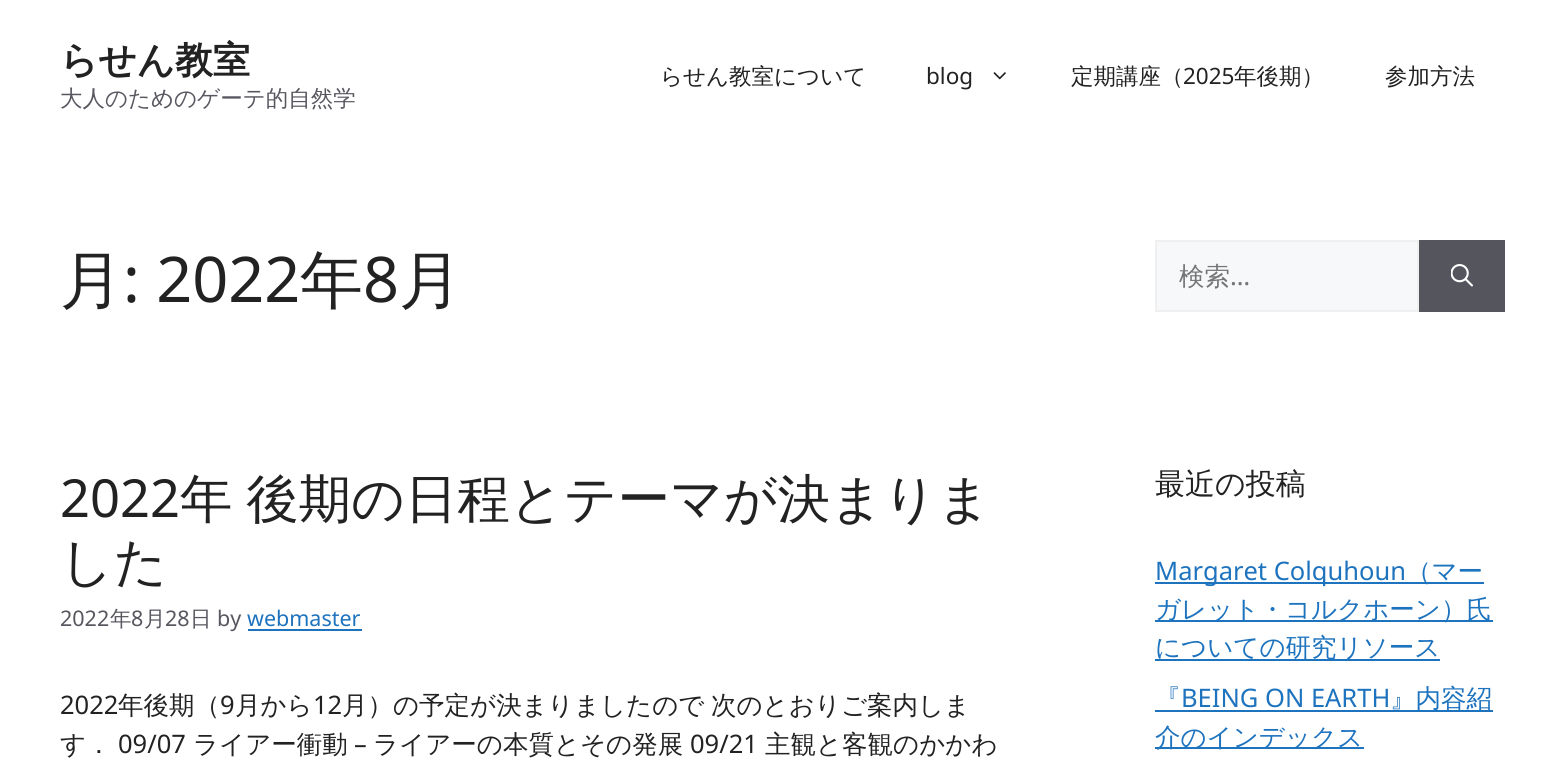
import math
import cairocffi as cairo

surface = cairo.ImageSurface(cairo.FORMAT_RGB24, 1564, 760)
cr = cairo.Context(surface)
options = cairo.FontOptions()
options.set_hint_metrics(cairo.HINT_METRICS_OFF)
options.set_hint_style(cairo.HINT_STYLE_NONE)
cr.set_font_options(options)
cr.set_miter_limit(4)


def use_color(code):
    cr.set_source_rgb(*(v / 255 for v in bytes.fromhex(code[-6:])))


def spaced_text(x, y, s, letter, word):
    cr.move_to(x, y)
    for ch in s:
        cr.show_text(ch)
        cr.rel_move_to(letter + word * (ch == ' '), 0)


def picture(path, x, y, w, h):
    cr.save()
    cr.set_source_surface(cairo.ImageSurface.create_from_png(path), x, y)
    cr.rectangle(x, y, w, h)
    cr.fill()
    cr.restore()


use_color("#ffffff")
cr.paint()
cr.select_font_face("WenQuanYi Zen Hei", cairo.FONT_SLANT_NORMAL, cairo.FONT_WEIGHT_BOLD)
cr.set_font_size(37.5)
use_color("#222222")
cr.move_to(60, 73)
cr.show_text("らせん教室")
cr.select_font_face("WenQuanYi Zen Hei Medium")
cr.set_font_size(22.5)
use_color("#575760")
cr.move_to(60, 106)
cr.show_text("大人のためのゲーテ的自然学")
use_color("#222222")
cr.move_to(660, 84)
cr.show_text("らせん教室について")
cr.select_font_face("Noto Sans")
cr.move_to(926, 84)
cr.show_text("blog")
picture("img1.png", 993, 72, 13, 8)
cr.select_font_face("WenQuanYi Zen Hei Medium")
cr.move_to(1071, 84)
cr.show_text("定期講座（")
cr.select_font_face("Noto Sans")
cr.move_to(1183, 84)
cr.show_text("2025")
cr.select_font_face("WenQuanYi Zen Hei Medium")
cr.move_to(1234, 84)
cr.show_text("年後期）")
cr.move_to(1385, 84)
cr.show_text("参加方法")
cr.set_font_size(63)
cr.move_to(60, 302)
cr.show_text("月")
cr.select_font_face("Noto Sans")
cr.move_to(123, 302)
cr.show_text(": 2022")
cr.select_font_face("WenQuanYi Zen Hei Medium")
cr.move_to(300, 302)
cr.show_text("年")
cr.select_font_face("Noto Sans")
cr.move_to(363, 302)
cr.show_text("8")
cr.select_font_face("WenQuanYi Zen Hei Medium")
cr.move_to(399, 302)
cr.show_text("月")
cr.select_font_face("Noto Sans")
cr.set_font_size(52.5)
cr.move_to(60, 517)
cr.show_text("2022")
cr.select_font_face("WenQuanYi Zen Hei Medium")
spaced_text(180, 517, "年 後期の日程とテーマが決まりま", 0, -2)
cr.move_to(60, 580)
cr.show_text("した")
cr.select_font_face("Noto Sans")
cr.set_font_size(21.5)
use_color("#575760")
cr.move_to(60, 626)
cr.show_text("2022")
cr.select_font_face("WenQuanYi Zen Hei Medium")
cr.move_to(110, 626)
cr.show_text("年")
cr.select_font_face("Noto Sans")
cr.move_to(131, 626)
cr.show_text("8")
cr.select_font_face("WenQuanYi Zen Hei Medium")
cr.move_to(144, 626)
cr.show_text("月")
cr.select_font_face("Noto Sans")
cr.move_to(165, 626)
cr.show_text("28")
cr.select_font_face("WenQuanYi Zen Hei Medium")
cr.move_to(190, 626)
cr.show_text("日")
cr.select_font_face("Noto Sans")
cr.move_to(217, 626)
cr.show_text("by")
use_color("#1e73be")
cr.move_to(247, 626)
cr.show_text("webmaster")
cr.rectangle(248, 629, 114, 2)
cr.fill()
cr.set_font_size(25.5)
use_color("#222222")
cr.move_to(60, 714)
cr.show_text("2022")
cr.select_font_face("WenQuanYi Zen Hei Medium")
cr.move_to(118, 714)
cr.show_text("年後期（")
cr.select_font_face("Noto Sans")
cr.move_to(220, 714)
cr.show_text("9")
cr.select_font_face("WenQuanYi Zen Hei Medium")
cr.move_to(235, 714)
cr.show_text("月から")
cr.select_font_face("Noto Sans")
cr.move_to(313, 714)
cr.show_text("12")
cr.select_font_face("WenQuanYi Zen Hei Medium")
spaced_text(342, 714, "月）の予定が決まりましたので 次のとおりご案内しま", 0, -1)
cr.move_to(60, 753)
cr.show_text("す．")
cr.select_font_face("Noto Sans")
cr.move_to(118, 753)
cr.show_text("09/07")
cr.select_font_face("WenQuanYi Zen Hei Medium")
cr.move_to(193, 753)
cr.show_text("ライアー衝動")
cr.select_font_face("Noto Sans")
cr.move_to(354, 753)
cr.show_text("–")
cr.select_font_face("WenQuanYi Zen Hei Medium")
cr.move_to(373, 753)
cr.show_text("ライアーの本質とその発展")
cr.select_font_face("Noto Sans")
cr.move_to(690, 753)
cr.show_text("09/21")
cr.select_font_face("WenQuanYi Zen Hei Medium")
cr.move_to(765, 753)
cr.show_text("主観と客観のかかわ")
use_color("#f7f8f9")
cr.rectangle(1156, 241, 262, 70)
cr.fill_preserve()
use_color("#f0f0f0")
cr.stroke()
use_color("#757575")
cr.move_to(1179, 285)
cr.show_text("検索")
cr.select_font_face("Noto Sans")
cr.move_to(1230, 285)
cr.show_text("…")
use_color("#55555e")
cr.rectangle(1419, 240, 86, 72)
cr.fill()
picture("img2.png", 1451, 264, 22, 23)
cr.select_font_face("WenQuanYi Zen Hei Medium")
cr.set_font_size(30)
use_color("#222222")
cr.move_to(1155, 494)
cr.show_text("最近の投稿")
use_color("#1e73be")
cr.rectangle(1155, 582, 329, 2)
cr.fill()
cr.select_font_face("Noto Sans")
cr.set_font_size(25.5)
cr.move_to(1155, 580)
cr.show_text("Margaret Colquhoun")
cr.select_font_face("WenQuanYi Zen Hei Medium")
cr.move_to(1406, 580)
cr.show_text("（マー")
cr.rectangle(1155, 620, 338, 2)
cr.fill()
cr.move_to(1155, 618)
cr.show_text("ガレット・コルクホーン）氏")
cr.rectangle(1155, 659, 285, 2)
cr.fill()
cr.move_to(1155, 656)
cr.show_text("についての研究リソース")
cr.move_to(1155, 707)
cr.show_text("『")
cr.select_font_face("Noto Sans")
cr.move_to(1181, 707)
cr.show_text("BEING ON EARTH")
cr.rectangle(1155, 710, 338, 2)
cr.fill()
cr.select_font_face("WenQuanYi Zen Hei Medium")
cr.move_to(1390, 707)
cr.show_text("』内容紹")
cr.rectangle(1155, 747, 209, 2)
cr.fill()
cr.move_to(1155, 746)
cr.show_text("介のインデックス")
surface.write_to_png("result.png")
